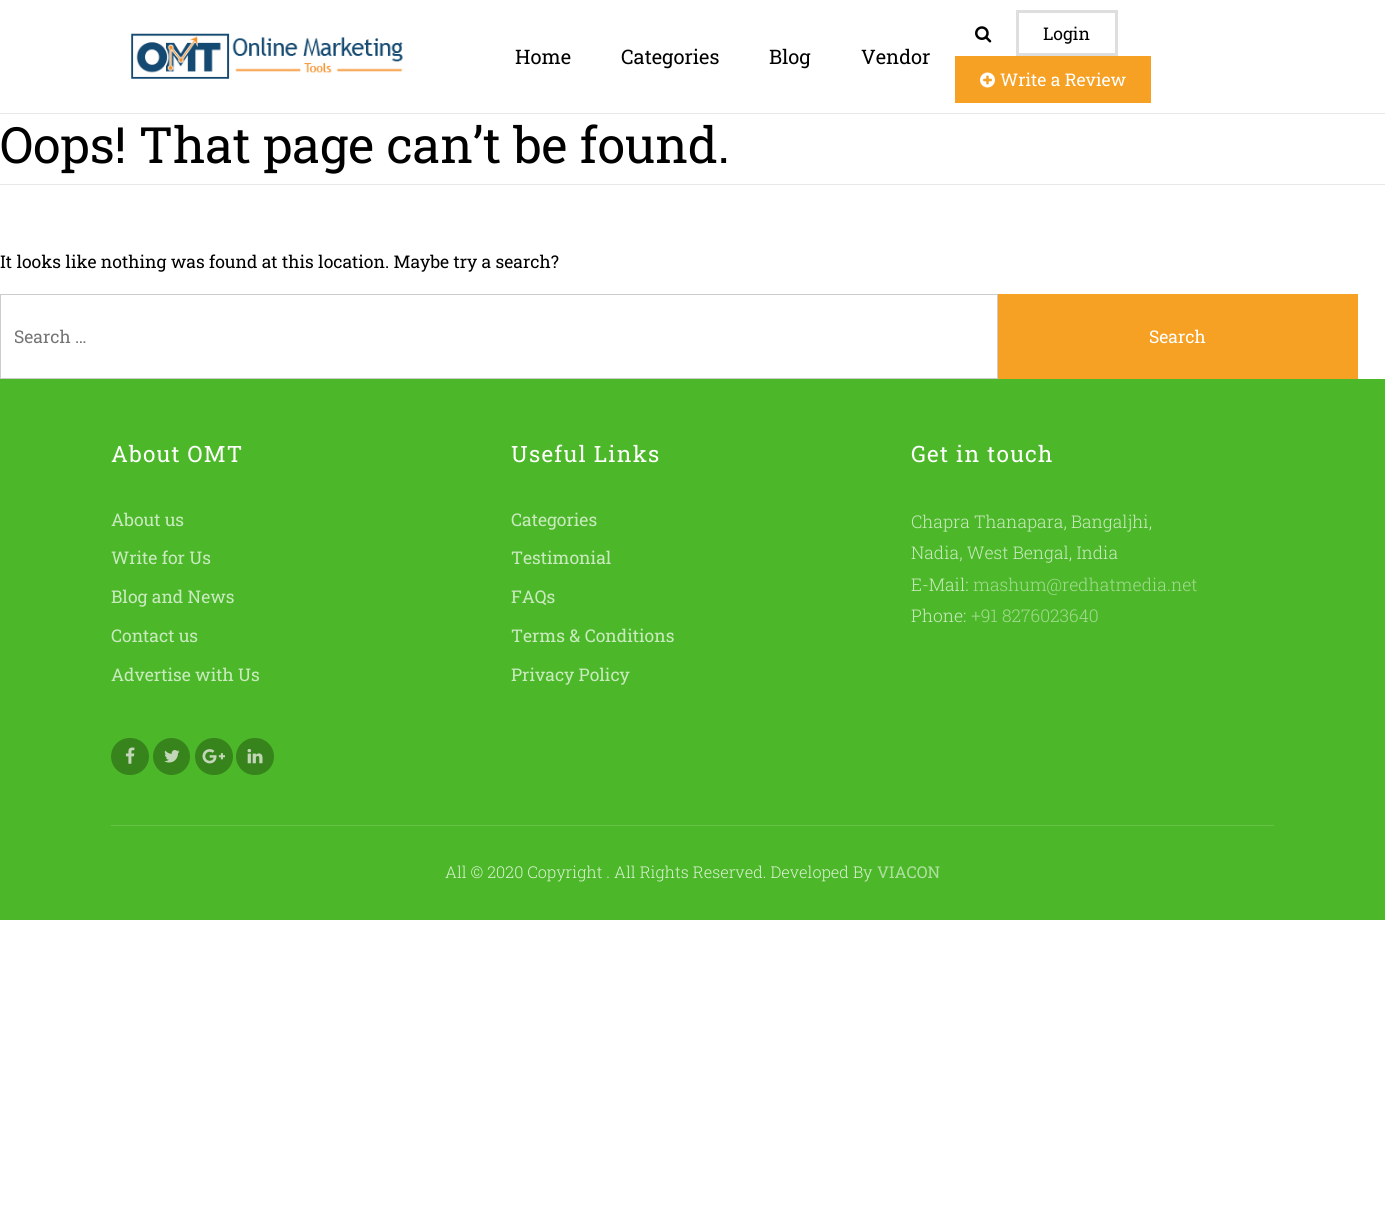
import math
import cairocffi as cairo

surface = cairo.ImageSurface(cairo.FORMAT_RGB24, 1385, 1213)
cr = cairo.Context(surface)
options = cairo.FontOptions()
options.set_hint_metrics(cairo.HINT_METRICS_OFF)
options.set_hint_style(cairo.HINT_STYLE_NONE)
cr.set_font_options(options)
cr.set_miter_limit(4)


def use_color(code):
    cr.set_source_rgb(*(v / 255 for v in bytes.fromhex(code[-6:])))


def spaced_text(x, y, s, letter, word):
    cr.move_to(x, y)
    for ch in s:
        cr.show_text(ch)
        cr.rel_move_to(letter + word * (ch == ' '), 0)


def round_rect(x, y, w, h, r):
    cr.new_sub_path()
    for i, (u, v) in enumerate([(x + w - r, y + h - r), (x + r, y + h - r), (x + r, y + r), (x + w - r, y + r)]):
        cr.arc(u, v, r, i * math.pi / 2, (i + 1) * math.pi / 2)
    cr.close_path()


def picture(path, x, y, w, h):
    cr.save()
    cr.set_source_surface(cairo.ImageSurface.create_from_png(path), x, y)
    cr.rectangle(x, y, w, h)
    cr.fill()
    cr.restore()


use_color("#ffffff")
cr.paint()
use_color("#e8e8e8")
cr.rectangle(0, 113, 1385, 1)
cr.fill()
picture("img1.png", 131, 33, 272, 46)
cr.select_font_face("Roboto Slab")
cr.set_font_size(20)
use_color("#000000")
cr.move_to(515, 64)
cr.show_text("Home")
cr.move_to(621, 64)
cr.show_text("Categories")
cr.move_to(769, 64)
cr.show_text("Blog")
cr.move_to(861, 64)
cr.show_text("Vendor")
picture("img2.png", 975, 26, 17, 17)
cr.rectangle(1017.5, 11.5, 99, 43)
use_color("#dedede")
cr.set_line_width(3)
cr.stroke()
cr.set_font_size(17.5)
use_color("#000000")
cr.move_to(1043, 40)
cr.show_text("Login")
use_color("#f6a123")
cr.rectangle(955, 56, 196, 47)
cr.fill()
picture("img3.png", 980, 72, 15, 16)
use_color("#ffffff")
cr.move_to(1000, 86)
cr.show_text("Write a Review")
use_color("#e7e7e7")
cr.rectangle(0, 184, 1385, 1)
cr.fill()
cr.set_font_size(50)
use_color("#000000")
cr.move_to(0, 163)
cr.show_text("Oops! That page can’t be found.")
cr.set_font_size(17.5)
cr.move_to(0, 268)
cr.show_text("It looks like nothing was found at this location. Maybe try a search?")
cr.rectangle(0.5, 294.5, 997, 84)
use_color("#cccccc")
cr.set_line_width(1)
cr.stroke()
use_color("#757575")
cr.move_to(14, 343)
cr.show_text("Search …")
use_color("#f6a123")
cr.rectangle(998, 294, 360, 85)
cr.fill()
use_color("#ffffff")
cr.move_to(1149, 343)
cr.show_text("Search")
use_color("#4cb829")
cr.rectangle(0, 379, 1385, 541)
cr.fill()
cr.set_font_size(22.5)
use_color("#ffffff")
spaced_text(111, 462, "About OMT", 1.25, 0)
cr.set_font_size(17.5)
use_color("#c9eabf")
cr.move_to(111, 526)
cr.show_text("About us")
cr.move_to(111, 564)
cr.show_text("Write for Us")
cr.move_to(111, 603)
cr.show_text("Blog and News")
cr.move_to(111, 642)
cr.show_text("Contact us")
cr.move_to(111, 681)
cr.show_text("Advertise with Us")
use_color("#37841d")
round_rect(111, 738, 38, 37, 18.5)
cr.fill()
picture("img4.png", 125, 747, 10, 17)
cr.arc(171.5, 756.5, 18.5, 0, 2 * math.pi)
cr.fill()
picture("img5.png", 164, 750, 16, 13)
round_rect(195, 738, 38, 37, 18.5)
cr.fill()
picture("img6.png", 202, 749, 23, 15)
round_rect(236, 738, 38, 37, 18.5)
cr.fill()
picture("img7.png", 247, 749, 16, 15)
cr.set_font_size(22.5)
use_color("#ffffff")
spaced_text(511, 462, "Useful Links", 1.25, 0)
cr.set_font_size(17.5)
use_color("#c9eabf")
cr.move_to(511, 526)
cr.show_text("Categories")
cr.move_to(511, 564)
cr.show_text("Testimonial")
cr.move_to(511, 603)
cr.show_text("FAQs")
cr.move_to(511, 642)
cr.show_text("Terms & Conditions")
cr.move_to(511, 681)
cr.show_text("Privacy Policy")
cr.set_font_size(22.5)
use_color("#ffffff")
spaced_text(911, 462, "Get in touch", 1.25, 0)
cr.select_font_face("Roboto Slab Light")
cr.set_font_size(17.5)
use_color("#c9eabf")
cr.move_to(911, 528)
cr.show_text("Chapra Thanapara, Bangaljhi,")
cr.move_to(911, 559)
cr.show_text("Nadia, West Bengal, India")
cr.move_to(911, 591)
cr.show_text("E-Mail:")
use_color("#a4db92")
cr.move_to(973, 591)
cr.show_text("mashum@redhatmedia.net")
use_color("#c9eabf")
cr.move_to(911, 622)
cr.show_text("Phone:")
use_color("#a4db92")
cr.move_to(971, 622)
cr.show_text("+91 8276023640")
use_color("#65c247")
cr.rectangle(111, 825, 1163, 1)
cr.fill()
cr.set_font_size(16.25)
use_color("#dbf1d4")
cr.move_to(445, 878)
cr.show_text("All © 2020 Copyright . All Rights Reserved. Developed By")
cr.select_font_face("Roboto Slab")
use_color("#b0e0a1")
cr.move_to(877, 878)
cr.show_text("VIACON")
surface.write_to_png("result.png")
